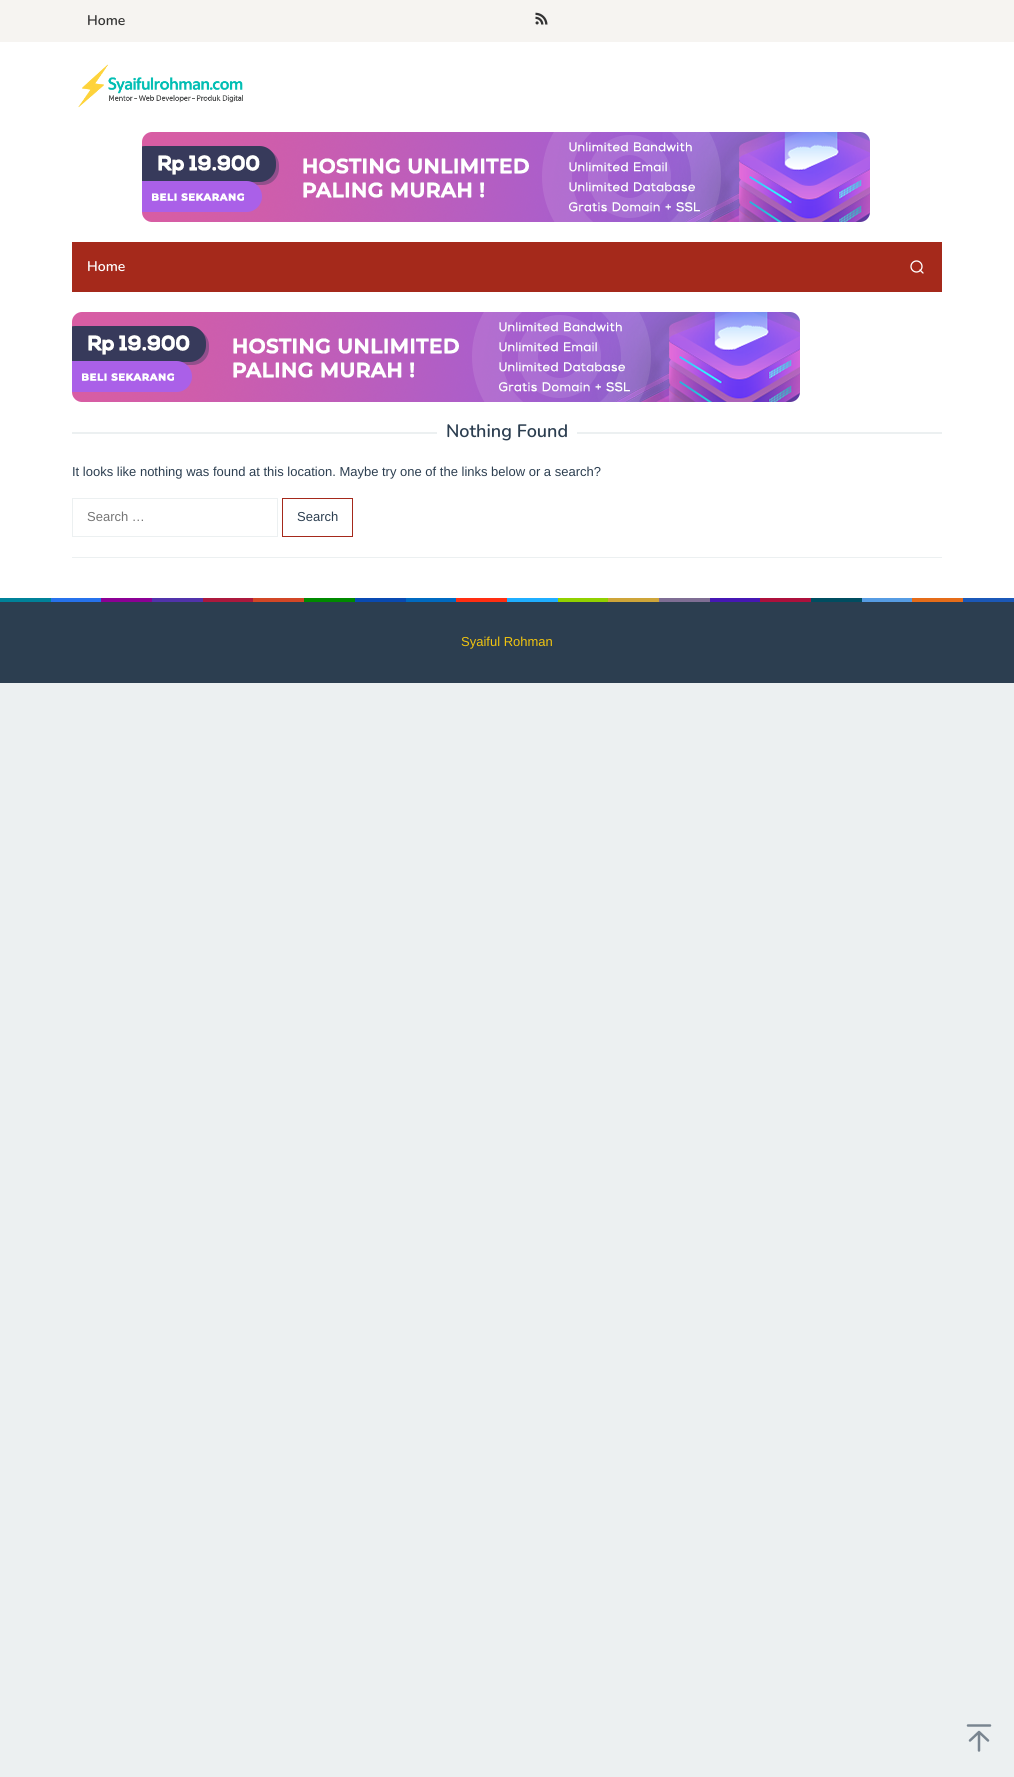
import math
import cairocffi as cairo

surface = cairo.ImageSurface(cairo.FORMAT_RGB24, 1014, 1777)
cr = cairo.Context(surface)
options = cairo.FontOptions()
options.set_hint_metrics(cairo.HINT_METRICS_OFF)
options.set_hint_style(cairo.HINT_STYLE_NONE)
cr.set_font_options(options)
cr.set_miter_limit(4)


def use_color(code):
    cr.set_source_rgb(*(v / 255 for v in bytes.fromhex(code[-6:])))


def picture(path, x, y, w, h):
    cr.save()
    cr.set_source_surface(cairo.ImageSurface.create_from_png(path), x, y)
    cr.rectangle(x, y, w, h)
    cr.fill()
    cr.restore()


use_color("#ecf0f1")
cr.paint()
use_color("#ffffff")
cr.rectangle(0, 42, 1014, 200)
cr.fill()
use_color("#f6f4f1")
cr.rectangle(0, 0, 1014, 42)
cr.fill()
cr.select_font_face("Nunito SemiBold")
cr.set_font_size(14)
use_color("#333333")
cr.move_to(87, 25)
cr.show_text("Home")
picture("img1.png", 535, 12, 13, 13)
picture("img2.png", 78, 64, 165, 44)
picture("img3.png", 142, 132, 728, 90)
use_color("#ffffff")
cr.rectangle(0, 242, 1014, 356)
cr.fill()
use_color("#a5291b")
cr.rectangle(72, 242, 870, 50)
cr.fill()
use_color("#ffffff")
cr.move_to(87, 271)
cr.show_text("Home")
cr.new_path()
cr.arc(916.5, 266.5, 5.5, 0, 2 * math.pi)
cr.set_line_width(1.3)
cr.stroke()
cr.new_path()
cr.move_to(923, 273)
cr.line_to(920, 270)
cr.set_line_cap(cairo.LINE_CAP_ROUND)
cr.set_line_join(cairo.LINE_JOIN_ROUND)
cr.stroke()
picture("img3.png", 72, 312, 728, 90)
use_color("#ecf0f1")
cr.rectangle(72, 557, 870, 1)
cr.fill()
cr.rectangle(72, 432, 365, 2)
cr.fill()
cr.set_font_size(18)
use_color("#2c3e50")
cr.move_to(446, 437)
cr.show_text("Nothing Found")
use_color("#ecf0f1")
cr.rectangle(577, 432, 365, 2)
cr.fill()
cr.select_font_face("Liberation Sans")
cr.set_font_size(13)
use_color("#2c3e50")
cr.move_to(72, 476)
cr.show_text("It looks like nothing was found at this location. Maybe try one of the links below or a search?")
cr.rectangle(72.5, 498.5, 205, 38)
use_color("#ecf0f1")
cr.set_line_width(1)
cr.set_line_cap(cairo.LINE_CAP_BUTT)
cr.set_line_join(cairo.LINE_JOIN_MITER)
cr.stroke()
use_color("#757575")
cr.move_to(87, 521)
cr.show_text("Search …")
cr.rectangle(282.5, 498.5, 70, 38)
use_color("#a5291b")
cr.stroke()
use_color("#2c3e50")
cr.move_to(297, 521)
cr.show_text("Search")
use_color("#008299")
cr.rectangle(0, 598, 51, 4)
cr.fill()
use_color("#2672ec")
cr.rectangle(51, 598, 50, 4)
cr.fill()
use_color("#8c0095")
cr.rectangle(101, 598, 51, 4)
cr.fill()
use_color("#5133ab")
cr.rectangle(152, 598, 51, 4)
cr.fill()
use_color("#ac193d")
cr.rectangle(203, 598, 50, 4)
cr.fill()
use_color("#d24726")
cr.rectangle(253, 598, 51, 4)
cr.fill()
use_color("#008a00")
cr.rectangle(304, 598, 51, 4)
cr.fill()
use_color("#094ab2")
cr.rectangle(355, 598, 51, 4)
cr.fill()
use_color("#006ac1")
cr.rectangle(406, 598, 50, 4)
cr.fill()
use_color("#ff2e12")
cr.rectangle(456, 598, 51, 4)
cr.fill()
use_color("#1faeff")
cr.rectangle(507, 598, 51, 4)
cr.fill()
use_color("#91d100")
cr.rectangle(558, 598, 50, 4)
cr.fill()
use_color("#cea539")
cr.rectangle(608, 598, 51, 4)
cr.fill()
use_color("#7f6e94")
cr.rectangle(659, 598, 51, 4)
cr.fill()
use_color("#4617b4")
cr.rectangle(710, 598, 50, 4)
cr.fill()
use_color("#ad103c")
cr.rectangle(760, 598, 51, 4)
cr.fill()
use_color("#004d60")
cr.rectangle(811, 598, 51, 4)
cr.fill()
use_color("#569ce3")
cr.rectangle(862, 598, 50, 4)
cr.fill()
use_color("#e56c19")
cr.rectangle(912, 598, 51, 4)
cr.fill()
use_color("#1b58b8")
cr.rectangle(963, 598, 51, 4)
cr.fill()
use_color("#2c3e50")
cr.rectangle(0, 602, 1014, 81)
cr.fill()
use_color("#f1c40f")
cr.move_to(461, 646)
cr.show_text("Syaiful Rohman")
cr.new_path()
cr.move_to(979, 1750.5)
cr.line_to(979, 1732)
cr.move_to(970, 1740.5)
cr.line_to(979, 1732)
cr.line_to(988, 1740.5)
cr.move_to(968, 1725.5)
cr.line_to(990, 1725.5)
use_color("#798590")
cr.set_line_width(2.5)
cr.set_line_cap(cairo.LINE_CAP_ROUND)
cr.set_line_join(cairo.LINE_JOIN_ROUND)
cr.stroke()
surface.write_to_png("result.png")
